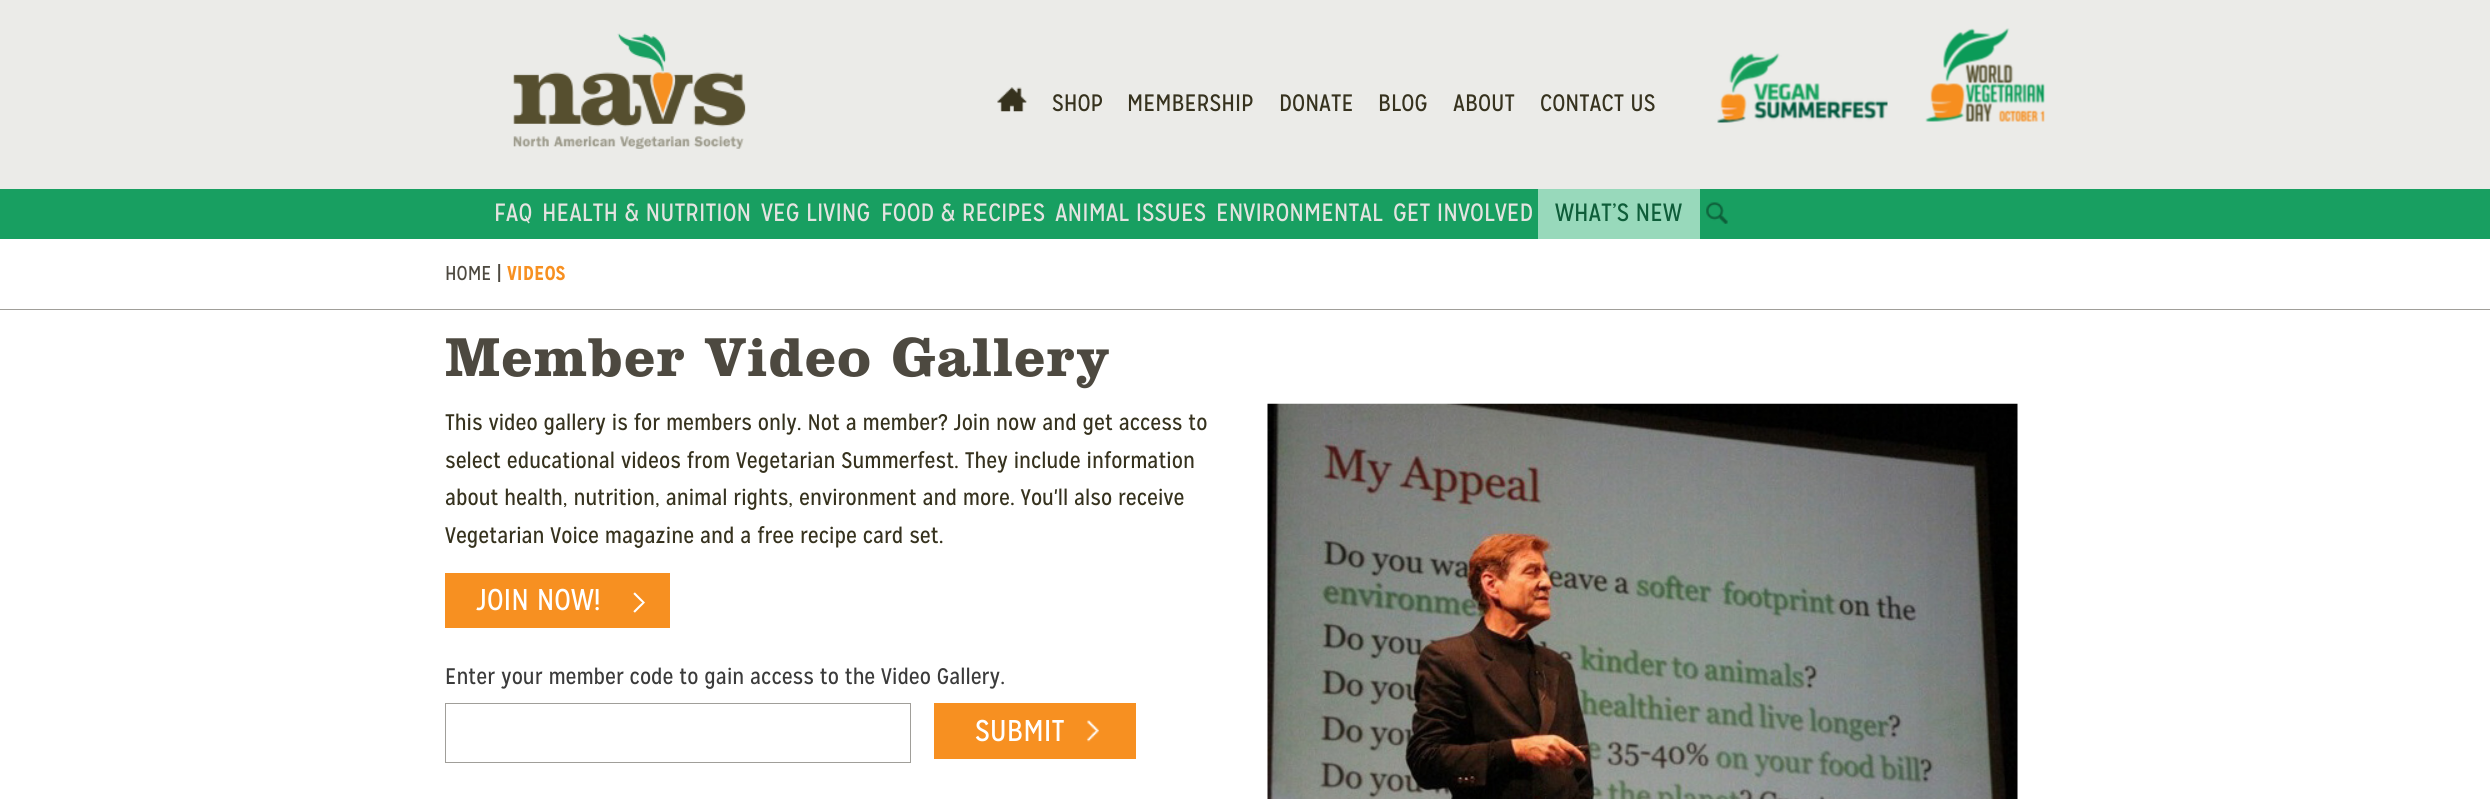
import math
import cairocffi as cairo

surface = cairo.ImageSurface(cairo.FORMAT_RGB24, 2490, 799)
cr = cairo.Context(surface)
options = cairo.FontOptions()
options.set_hint_metrics(cairo.HINT_METRICS_OFF)
options.set_hint_style(cairo.HINT_STYLE_NONE)
cr.set_font_options(options)
cr.set_miter_limit(4)


def use_color(code):
    cr.set_source_rgb(*(v / 255 for v in bytes.fromhex(code[-6:])))


def spaced_text(x, y, s, letter, word):
    cr.move_to(x, y)
    for ch in s:
        cr.show_text(ch)
        cr.rel_move_to(letter + word * (ch == ' '), 0)


def picture(path, x, y, w, h):
    cr.save()
    cr.set_source_surface(cairo.ImageSurface.create_from_png(path), x, y)
    cr.rectangle(x, y, w, h)
    cr.fill()
    cr.restore()


use_color("#ffffff")
cr.paint()
use_color("#ebebe8")
cr.rectangle(0, 0, 2490, 189)
cr.fill()
picture("img1.png", 513, 33, 233, 116)
picture("img2.png", 997, 87, 30, 25)
cr.select_font_face("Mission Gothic")
cr.set_font_size(23.75)
use_color("#36321e")
cr.move_to(1052, 111)
cr.show_text("SHOP")
cr.move_to(1127, 111)
cr.show_text("MEMBERSHIP")
cr.move_to(1279, 111)
cr.show_text("DONATE")
cr.move_to(1378, 111)
cr.show_text("BLOG")
cr.move_to(1453, 111)
cr.show_text("ABOUT")
cr.move_to(1540, 111)
cr.show_text("CONTACT US")
picture("img3.png", 1717, 53, 171, 70)
picture("img4.png", 1925, 28, 120, 94)
use_color("#189f61")
cr.rectangle(0, 189, 2490, 50)
cr.fill()
cr.set_font_size(25)
use_color("#e4e3e0")
cr.move_to(494, 221)
cr.show_text("FAQ")
cr.move_to(542, 221)
cr.show_text("HEALTH & NUTRITION")
cr.move_to(761, 221)
cr.show_text("VEG LIVING")
cr.move_to(881, 221)
cr.show_text("FOOD & RECIPES")
cr.move_to(1055, 221)
cr.show_text("ANIMAL ISSUES")
cr.move_to(1216, 221)
cr.show_text("ENVIRONMENTAL")
cr.move_to(1393, 221)
cr.show_text("GET INVOLVED")
use_color("#98d9bb")
cr.rectangle(1538, 189, 162, 50)
cr.fill()
use_color("#0e5d39")
cr.move_to(1555, 221)
cr.show_text("WHAT’S NEW")
picture("img5.png", 1706, 202, 22, 22)
use_color("#a09e99")
cr.rectangle(0, 309, 2490, 1)
cr.fill()
cr.set_font_size(20)
use_color("#4d4940")
cr.move_to(445, 280)
cr.show_text("HOME |")
cr.select_font_face("Mission Gothic", cairo.FONT_SLANT_NORMAL, cairo.FONT_WEIGHT_BOLD)
use_color("#f79021")
cr.move_to(507, 280)
cr.show_text("VIDEOS")
cr.select_font_face("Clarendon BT", cairo.FONT_SLANT_NORMAL, cairo.FONT_WEIGHT_BOLD)
cr.set_font_size(56.25)
use_color("#4d4940")
spaced_text(445, 376, "Member Video Gallery", 1.25, 0)
cr.select_font_face("Mission Gothic")
cr.set_font_size(22.5)
use_color("#36321e")
cr.move_to(445, 430)
cr.show_text("This video gallery is for members only. Not a member? Join now and get access to")
cr.move_to(445, 468)
cr.show_text("select educational videos from Vegetarian Summerfest. They include information")
cr.move_to(445, 505)
cr.show_text("about health, nutrition, animal rights, environment and more. You'll also receive")
cr.move_to(445, 543)
cr.show_text("Vegetarian Voice magazine and a free recipe card set.")
use_color("#f79021")
cr.rectangle(445, 573, 225, 55)
cr.fill()
cr.set_font_size(30)
use_color("#ffffff")
cr.move_to(476, 610)
cr.show_text("JOIN NOW!")
cr.select_font_face("Mission Gothic Thin")
cr.set_font_size(52)
cr.move_to(631, 621)
cr.show_text(">")
cr.select_font_face("Mission Gothic")
cr.set_font_size(22.5)
use_color("#3b3b3b")
cr.move_to(445, 684)
cr.show_text("Enter your member code to gain access to the Video Gallery.")
cr.rectangle(445.5, 703.5, 465, 59)
use_color("#a09e99")
cr.set_line_width(1)
cr.stroke()
use_color("#f79021")
cr.rectangle(934, 703, 202, 56)
cr.fill()
picture("img6.png", 1086, 720, 13, 22)
cr.set_font_size(30)
use_color("#ffffff")
cr.move_to(975, 741)
cr.show_text("SUBMIT")
picture("img7.png", 1267, 403, 751, 396)
surface.write_to_png("result.png")
